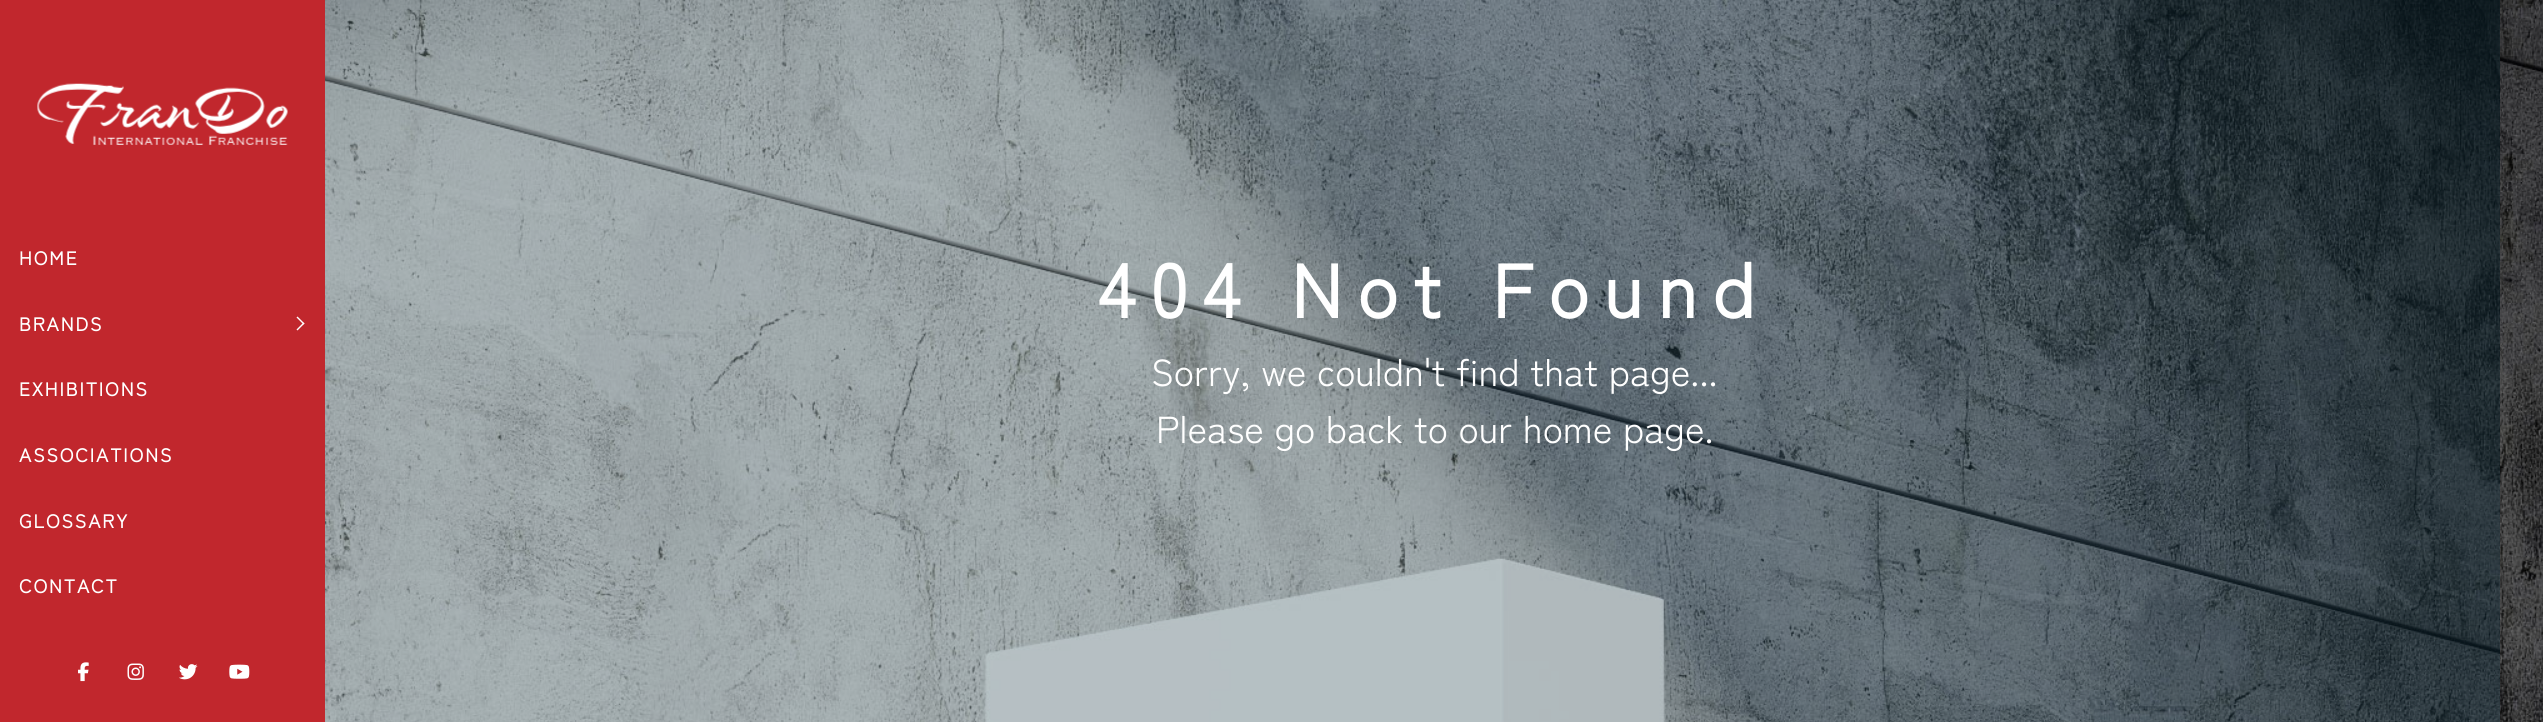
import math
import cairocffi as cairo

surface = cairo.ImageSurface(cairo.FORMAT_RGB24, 2543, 722)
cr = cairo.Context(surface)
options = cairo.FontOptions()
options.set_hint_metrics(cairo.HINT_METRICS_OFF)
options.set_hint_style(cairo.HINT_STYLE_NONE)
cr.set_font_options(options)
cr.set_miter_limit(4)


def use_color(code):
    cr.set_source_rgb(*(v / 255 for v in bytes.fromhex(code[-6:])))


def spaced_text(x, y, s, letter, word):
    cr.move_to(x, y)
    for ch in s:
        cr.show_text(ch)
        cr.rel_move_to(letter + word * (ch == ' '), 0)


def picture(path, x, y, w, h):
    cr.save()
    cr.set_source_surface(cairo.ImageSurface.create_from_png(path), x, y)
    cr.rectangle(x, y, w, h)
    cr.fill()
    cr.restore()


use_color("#ffffff")
cr.paint()
use_color("#c1272d")
cr.rectangle(0, 0, 325, 722)
cr.fill()
picture("img1.png", 37, 83, 251, 62)
cr.select_font_face("Zen Kaku Gothic New", cairo.FONT_SLANT_NORMAL, cairo.FONT_WEIGHT_BOLD)
cr.set_font_size(18.75)
use_color("#ffffff")
spaced_text(19, 265, "HOME", 1.9, 0)
spaced_text(19, 331, "BRANDS", 1.9, 0)
cr.new_path()
cr.move_to(297.5, 316.5)
cr.line_to(304.5, 323.5)
cr.line_to(303.5, 324.5)
cr.line_to(296.5, 317.5)
cr.close_path()
cr.fill()
cr.new_path()
cr.move_to(303.5, 322.5)
cr.line_to(304.5, 323.5)
cr.line_to(297.5, 330.5)
cr.line_to(296.5, 329.5)
cr.close_path()
cr.fill()
spaced_text(19, 396, "EXHIBITIONS", 1.9, 0)
spaced_text(19, 462, "ASSOCIATIONS", 1.9, 0)
spaced_text(19, 528, "GLOSSARY", 1.9, 0)
spaced_text(19, 593, "CONTACT", 1.9, 0)
picture("img2.png", 78, 662, 11, 20)
picture("img3.png", 127, 663, 17, 17)
picture("img4.png", 179, 664, 19, 16)
picture("img5.png", 229, 664, 21, 15)
picture("img6.png", 2500, 0, 43, 722)
picture("img7.png", 325, 0, 2175, 722)
cr.set_font_size(75)
spaced_text(1098, 318, "404 Not Found", 15, 0)
cr.select_font_face("Zen Kaku Gothic New")
cr.set_font_size(37.5)
cr.move_to(1151, 386)
cr.show_text("Sorry, we couldn't find that page...")
cr.move_to(1156, 443)
cr.show_text("Please go back to our home page.")
surface.write_to_png("result.png")
